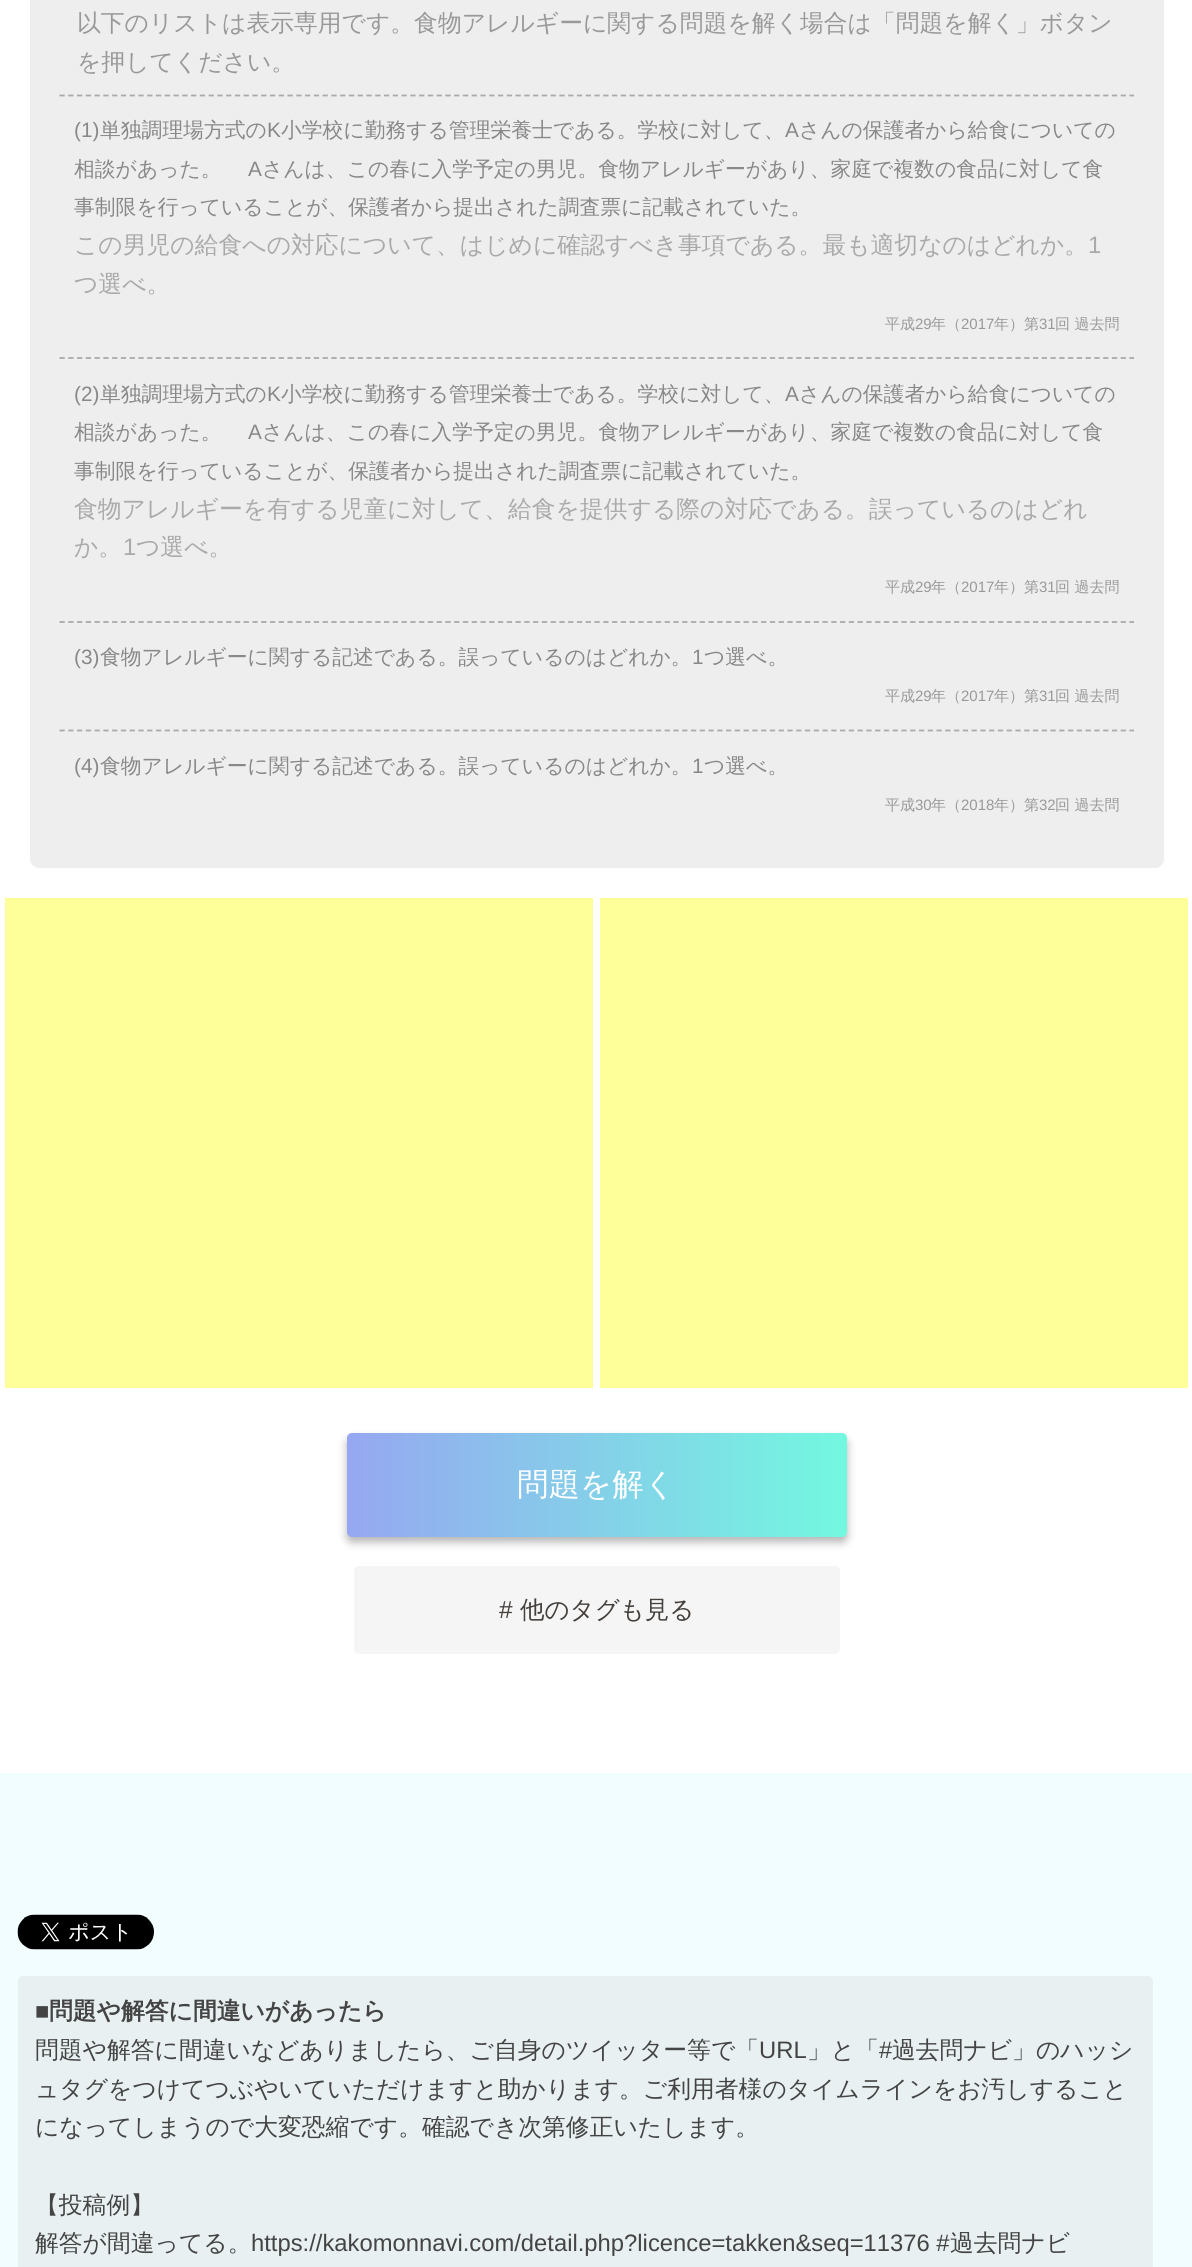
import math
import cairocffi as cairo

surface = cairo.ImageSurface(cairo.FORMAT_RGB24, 1192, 2267)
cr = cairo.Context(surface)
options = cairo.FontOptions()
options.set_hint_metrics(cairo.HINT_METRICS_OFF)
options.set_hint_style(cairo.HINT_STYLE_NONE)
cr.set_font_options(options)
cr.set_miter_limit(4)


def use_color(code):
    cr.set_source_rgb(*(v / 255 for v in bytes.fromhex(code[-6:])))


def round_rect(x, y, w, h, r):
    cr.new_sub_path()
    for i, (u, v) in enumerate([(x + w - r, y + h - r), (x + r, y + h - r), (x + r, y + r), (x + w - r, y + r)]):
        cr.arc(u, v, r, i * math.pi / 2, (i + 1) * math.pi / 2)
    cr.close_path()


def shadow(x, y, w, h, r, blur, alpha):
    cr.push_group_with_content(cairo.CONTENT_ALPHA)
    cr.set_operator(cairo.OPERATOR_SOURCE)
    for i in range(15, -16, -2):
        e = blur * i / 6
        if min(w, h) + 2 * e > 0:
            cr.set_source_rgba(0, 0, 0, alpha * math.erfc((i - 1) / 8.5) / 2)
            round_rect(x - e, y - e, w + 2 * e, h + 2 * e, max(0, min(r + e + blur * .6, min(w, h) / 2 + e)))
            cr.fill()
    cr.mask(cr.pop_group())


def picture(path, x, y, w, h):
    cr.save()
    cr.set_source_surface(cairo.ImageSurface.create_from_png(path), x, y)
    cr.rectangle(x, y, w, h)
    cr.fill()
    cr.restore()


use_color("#ffffff")
cr.paint()
use_color("#eeeeee")
round_rect(30, -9, 1134, 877, 9)
cr.fill()
cr.select_font_face("WenQuanYi Zen Hei Medium")
cr.set_font_size(23.8)
use_color("#999999")
cr.move_to(77, 31)
cr.show_text("以下のリストは表示専用です。食物アレルギーに関する問題を解く場合は「問題を解く」ボタン")
cr.move_to(77, 70)
cr.show_text("を押してください。")
cr.new_path()
cr.move_to(59.5, 95.5)
cr.line_to(1134, 95.5)
use_color("#aaaaaa")
cr.set_line_width(1.8)
cr.set_dash([5.25, 3.52])
cr.stroke()
cr.new_path()
cr.move_to(59.5, 358)
cr.line_to(1134, 358)
cr.stroke()
cr.select_font_face("Liberation Sans")
cr.set_font_size(20.8)
use_color("#888888")
cr.move_to(74, 137)
cr.show_text("(1)")
cr.select_font_face("WenQuanYi Zen Hei Medium")
cr.move_to(100, 137)
cr.show_text("単独調理場方式の")
cr.select_font_face("Liberation Sans")
cr.move_to(267, 137)
cr.show_text("K")
cr.select_font_face("WenQuanYi Zen Hei Medium")
cr.move_to(281, 137)
cr.show_text("小学校に勤務する管理栄養士である。学校に対して、")
cr.select_font_face("Liberation Sans")
cr.move_to(785, 137)
cr.show_text("A")
cr.select_font_face("WenQuanYi Zen Hei Medium")
cr.move_to(799, 137)
cr.show_text("さんの保護者から給食についての")
cr.move_to(74, 176)
cr.show_text("相談があった。")
cr.select_font_face("Liberation Sans")
cr.move_to(248, 176)
cr.show_text("A")
cr.select_font_face("WenQuanYi Zen Hei Medium")
cr.move_to(262, 176)
cr.show_text("さんは、この春に入学予定の男児。食物アレルギーがあり、家庭で複数の食品に対して食")
cr.move_to(74, 214)
cr.show_text("事制限を行っていることが、保護者から提出された調査票に記載されていた。")
cr.set_font_size(23.8)
use_color("#aaaaaa")
cr.move_to(74, 253)
cr.show_text("この男児の給食への対応について、はじめに確認すべき事項である。最も適切なのはどれか。")
cr.select_font_face("Liberation Sans")
cr.move_to(1088, 253)
cr.show_text("1")
cr.select_font_face("WenQuanYi Zen Hei Medium")
cr.move_to(74, 292)
cr.show_text("つ選べ。")
cr.set_font_size(15)
use_color("#999999")
cr.move_to(885, 329)
cr.show_text("平成")
cr.select_font_face("Liberation Sans")
cr.move_to(915, 329)
cr.show_text("29")
cr.select_font_face("WenQuanYi Zen Hei Medium")
cr.move_to(931, 329)
cr.show_text("年（")
cr.select_font_face("Liberation Sans")
cr.move_to(961, 329)
cr.show_text("2017")
cr.select_font_face("WenQuanYi Zen Hei Medium")
cr.move_to(994, 329)
cr.show_text("年）第")
cr.select_font_face("Liberation Sans")
cr.move_to(1039, 329)
cr.show_text("31")
cr.select_font_face("WenQuanYi Zen Hei Medium")
cr.move_to(1055, 329)
cr.show_text("回 過去問")
cr.new_path()
cr.move_to(59.5, 622)
cr.line_to(1134, 622)
use_color("#aaaaaa")
cr.stroke()
cr.select_font_face("Liberation Sans")
cr.set_font_size(20.8)
use_color("#888888")
cr.move_to(74, 401)
cr.show_text("(2)")
cr.select_font_face("WenQuanYi Zen Hei Medium")
cr.move_to(100, 401)
cr.show_text("単独調理場方式の")
cr.select_font_face("Liberation Sans")
cr.move_to(267, 401)
cr.show_text("K")
cr.select_font_face("WenQuanYi Zen Hei Medium")
cr.move_to(281, 401)
cr.show_text("小学校に勤務する管理栄養士である。学校に対して、")
cr.select_font_face("Liberation Sans")
cr.move_to(785, 401)
cr.show_text("A")
cr.select_font_face("WenQuanYi Zen Hei Medium")
cr.move_to(799, 401)
cr.show_text("さんの保護者から給食についての")
cr.move_to(74, 439)
cr.show_text("相談があった。")
cr.select_font_face("Liberation Sans")
cr.move_to(248, 439)
cr.show_text("A")
cr.select_font_face("WenQuanYi Zen Hei Medium")
cr.move_to(262, 439)
cr.show_text("さんは、この春に入学予定の男児。食物アレルギーがあり、家庭で複数の食品に対して食")
cr.move_to(74, 478)
cr.show_text("事制限を行っていることが、保護者から提出された調査票に記載されていた。")
cr.set_font_size(23.8)
use_color("#aaaaaa")
cr.move_to(74, 517)
cr.show_text("食物アレルギーを有する児童に対して、給食を提供する際の対応である。誤っているのはどれ")
cr.move_to(74, 555)
cr.show_text("か。")
cr.select_font_face("Liberation Sans")
cr.move_to(123, 555)
cr.show_text("1")
cr.select_font_face("WenQuanYi Zen Hei Medium")
cr.move_to(136, 555)
cr.show_text("つ選べ。")
cr.set_font_size(15)
use_color("#999999")
cr.move_to(885, 592)
cr.show_text("平成")
cr.select_font_face("Liberation Sans")
cr.move_to(915, 592)
cr.show_text("29")
cr.select_font_face("WenQuanYi Zen Hei Medium")
cr.move_to(931, 592)
cr.show_text("年（")
cr.select_font_face("Liberation Sans")
cr.move_to(961, 592)
cr.show_text("2017")
cr.select_font_face("WenQuanYi Zen Hei Medium")
cr.move_to(994, 592)
cr.show_text("年）第")
cr.select_font_face("Liberation Sans")
cr.move_to(1039, 592)
cr.show_text("31")
cr.select_font_face("WenQuanYi Zen Hei Medium")
cr.move_to(1055, 592)
cr.show_text("回 過去問")
cr.new_path()
cr.move_to(59.5, 730.5)
cr.line_to(1134, 730.5)
use_color("#aaaaaa")
cr.stroke()
cr.select_font_face("Liberation Sans")
cr.set_font_size(20.8)
use_color("#888888")
cr.move_to(74, 664)
cr.show_text("(3)")
cr.select_font_face("WenQuanYi Zen Hei Medium")
cr.move_to(100, 664)
cr.show_text("食物アレルギーに関する記述である。誤っているのはどれか。")
cr.select_font_face("Liberation Sans")
cr.move_to(692, 664)
cr.show_text("1")
cr.select_font_face("WenQuanYi Zen Hei Medium")
cr.move_to(704, 664)
cr.show_text("つ選べ。")
cr.set_font_size(15)
use_color("#999999")
cr.move_to(885, 701)
cr.show_text("平成")
cr.select_font_face("Liberation Sans")
cr.move_to(915, 701)
cr.show_text("29")
cr.select_font_face("WenQuanYi Zen Hei Medium")
cr.move_to(931, 701)
cr.show_text("年（")
cr.select_font_face("Liberation Sans")
cr.move_to(961, 701)
cr.show_text("2017")
cr.select_font_face("WenQuanYi Zen Hei Medium")
cr.move_to(994, 701)
cr.show_text("年）第")
cr.select_font_face("Liberation Sans")
cr.move_to(1039, 701)
cr.show_text("31")
cr.select_font_face("WenQuanYi Zen Hei Medium")
cr.move_to(1055, 701)
cr.show_text("回 過去問")
cr.select_font_face("Liberation Sans")
cr.set_font_size(20.8)
use_color("#888888")
cr.move_to(74, 773)
cr.show_text("(4)")
cr.select_font_face("WenQuanYi Zen Hei Medium")
cr.move_to(100, 773)
cr.show_text("食物アレルギーに関する記述である。誤っているのはどれか。")
cr.select_font_face("Liberation Sans")
cr.move_to(692, 773)
cr.show_text("1")
cr.select_font_face("WenQuanYi Zen Hei Medium")
cr.move_to(704, 773)
cr.show_text("つ選べ。")
cr.set_font_size(15)
use_color("#999999")
cr.move_to(885, 810)
cr.show_text("平成")
cr.select_font_face("Liberation Sans")
cr.move_to(915, 810)
cr.show_text("30")
cr.select_font_face("WenQuanYi Zen Hei Medium")
cr.move_to(931, 810)
cr.show_text("年（")
cr.select_font_face("Liberation Sans")
cr.move_to(961, 810)
cr.show_text("2018")
cr.select_font_face("WenQuanYi Zen Hei Medium")
cr.move_to(994, 810)
cr.show_text("年）第")
cr.select_font_face("Liberation Sans")
cr.move_to(1039, 810)
cr.show_text("32")
cr.select_font_face("WenQuanYi Zen Hei Medium")
cr.move_to(1055, 810)
cr.show_text("回 過去問")
use_color("#ffff99")
cr.rectangle(5, 898, 588, 490)
cr.fill()
cr.rectangle(600, 898, 588, 490)
cr.fill()
use_color("#000000")
shadow(347, 1439, 500, 103, 5, 4.5, 0.3)
gradient = cairo.LinearGradient(347, 1485, 847, 1485)
gradient.add_color_stop_rgba(0, 0.588, 0.655, 0.945, 1)
gradient.add_color_stop_rgba(1, 0.451, 0.973, 0.878, 1)
cr.set_source(gradient)
round_rect(347, 1433, 500, 104, 5)
cr.fill()
cr.set_font_size(31.5)
use_color("#ffffff")
cr.move_to(517, 1495)
cr.show_text("問題を解く")
use_color("#f5f5f5")
round_rect(354, 1566, 486, 88, 5)
cr.fill()
cr.select_font_face("Liberation Sans")
cr.set_font_size(24.5)
use_color("#45403c")
cr.move_to(499, 1618)
cr.show_text("#")
cr.select_font_face("WenQuanYi Zen Hei Medium")
cr.move_to(520, 1618)
cr.show_text("他のタグも見る")
use_color("#f2fdff")
cr.rectangle(0, 1773, 1192, 494)
cr.fill()
picture("img1.png", 17, 1914, 137, 36)
use_color("#e8f0f1")
round_rect(18, 1976, 1135, 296, 5)
cr.fill()
cr.select_font_face("Liberation Sans", cairo.FONT_SLANT_NORMAL, cairo.FONT_WEIGHT_BOLD)
cr.set_font_size(23.8)
use_color("#444444")
cr.move_to(35, 2019)
cr.show_text("■")
cr.select_font_face("WenQuanYi Zen Hei", cairo.FONT_SLANT_NORMAL, cairo.FONT_WEIGHT_BOLD)
cr.move_to(49, 2019)
cr.show_text("問題や解答に間違いがあったら")
cr.select_font_face("WenQuanYi Zen Hei Medium")
cr.move_to(35, 2058)
cr.show_text("問題や解答に間違いなどありましたら、ご自身のツイッター等で「")
cr.select_font_face("Liberation Sans")
cr.move_to(759, 2058)
cr.show_text("URL")
cr.select_font_face("WenQuanYi Zen Hei Medium")
cr.move_to(807, 2058)
cr.show_text("」と「")
cr.select_font_face("Liberation Sans")
cr.move_to(879, 2058)
cr.show_text("#")
cr.select_font_face("WenQuanYi Zen Hei Medium")
cr.move_to(892, 2058)
cr.show_text("過去問ナビ」のハッシ")
cr.move_to(35, 2097)
cr.show_text("ュタグをつけてつぶやいていただけますと助かります。ご利用者様のタイムラインをお汚しすること")
cr.move_to(35, 2135)
cr.show_text("になってしまうので大変恐縮です。確認でき次第修正いたします。")
cr.move_to(35, 2213)
cr.show_text("【投稿例】")
cr.move_to(35, 2251)
cr.show_text("解答が間違ってる。")
cr.select_font_face("Liberation Sans")
cr.move_to(251, 2251)
cr.show_text("https://kakomonnavi.com/detail.php?licence=takken&seq=11376 #")
cr.select_font_face("WenQuanYi Zen Hei Medium")
cr.move_to(950, 2251)
cr.show_text("過去問ナビ")
surface.write_to_png("result.png")
